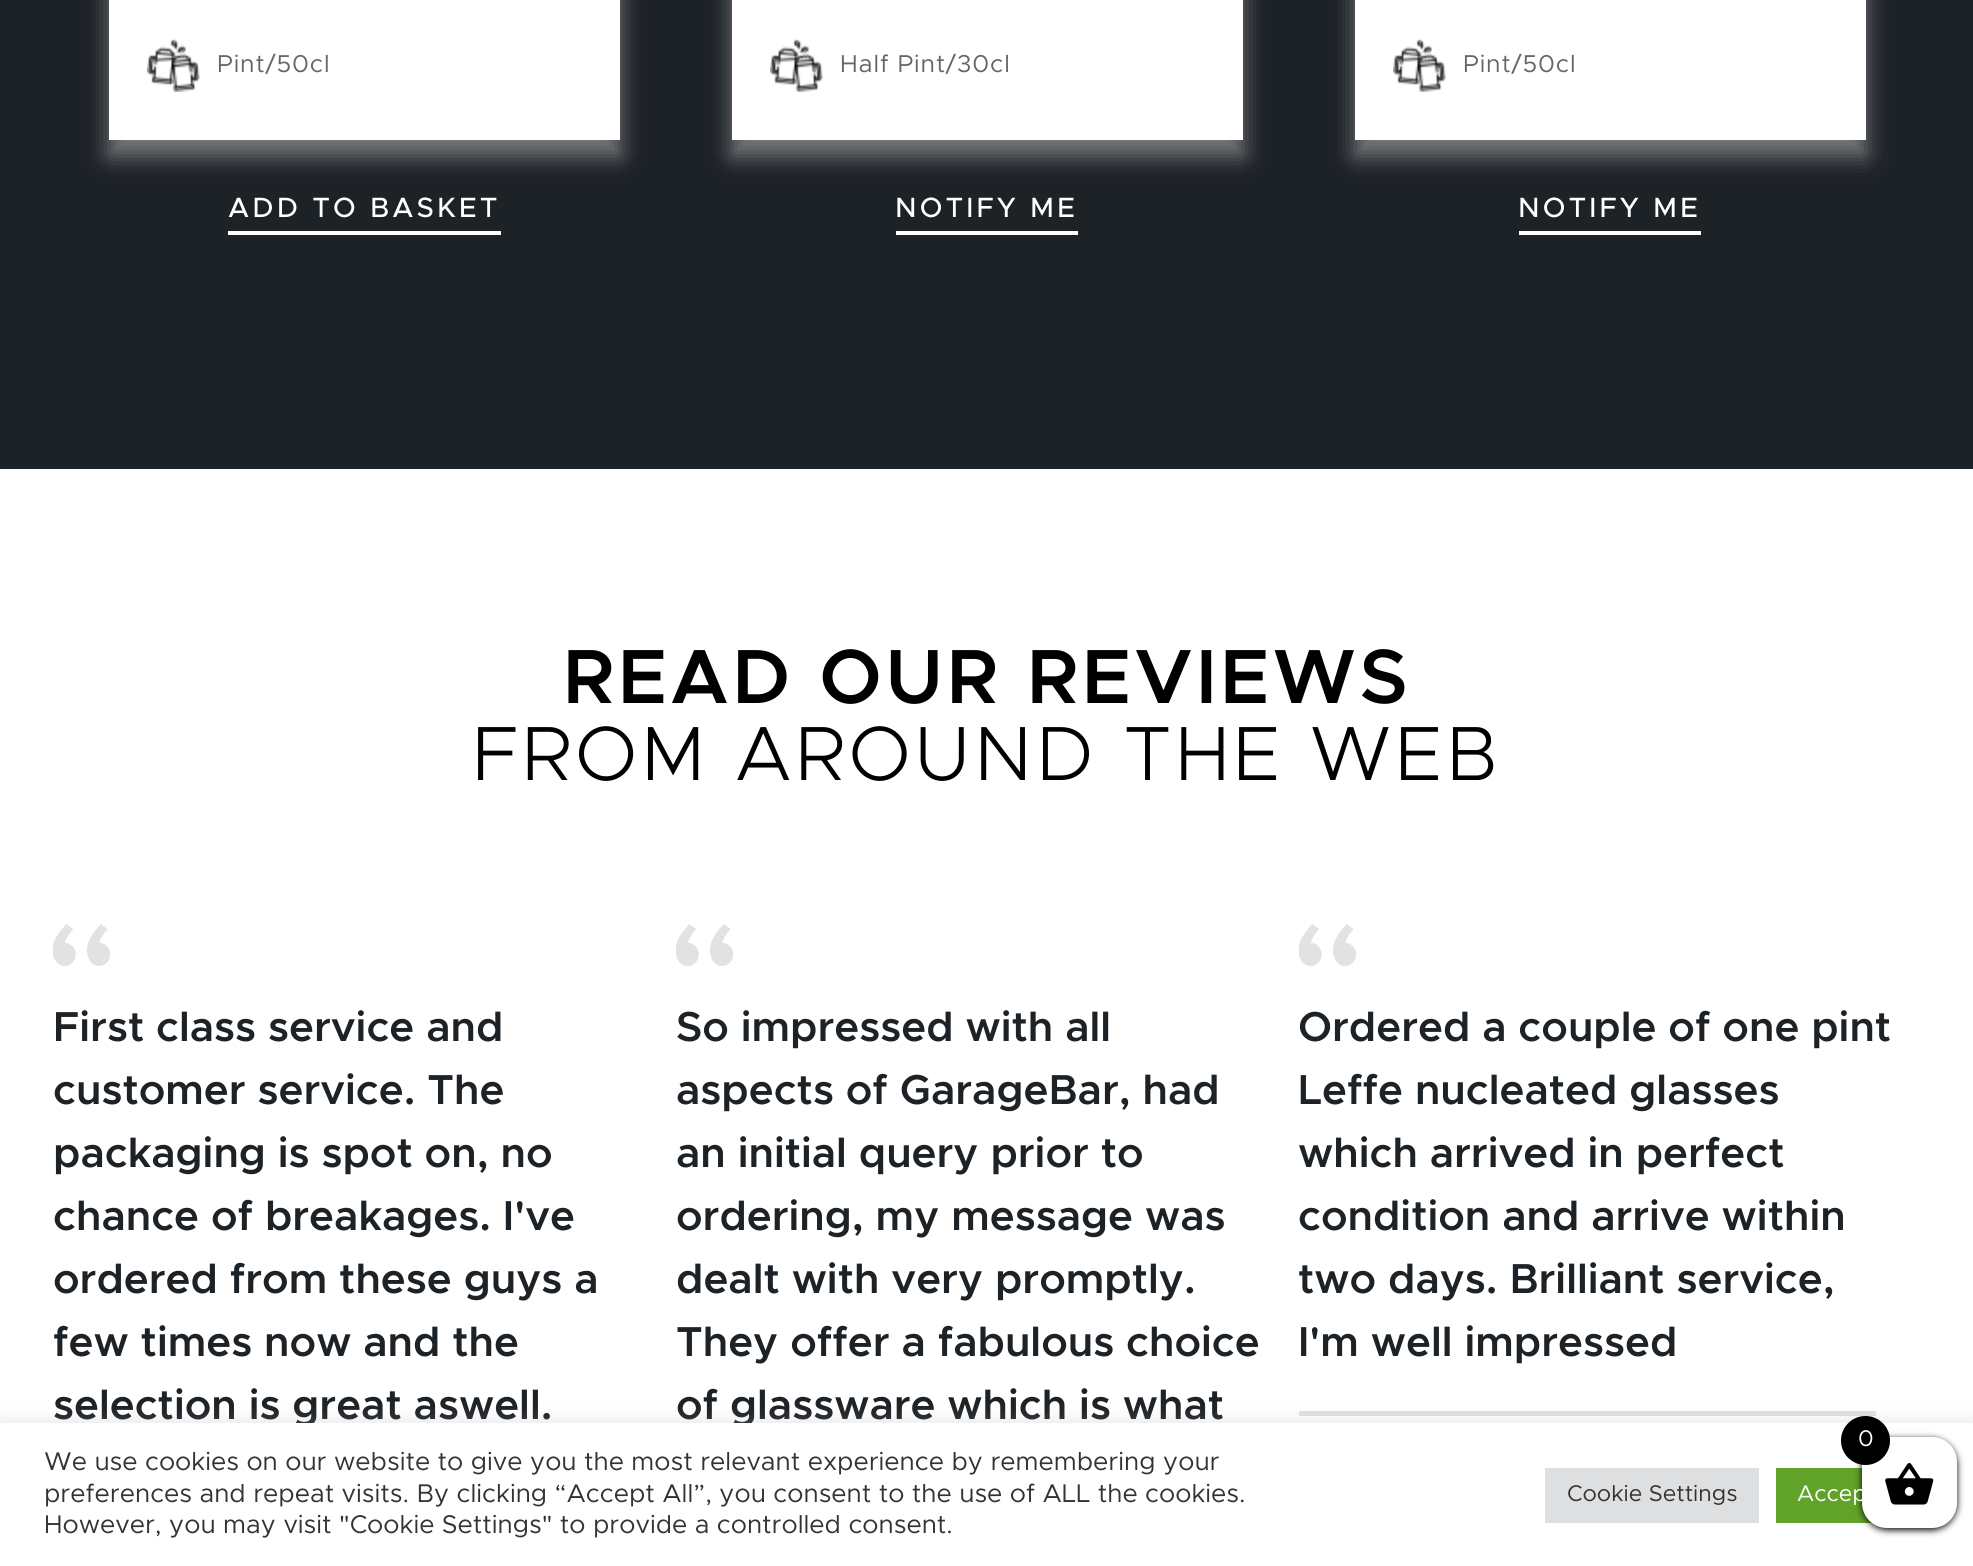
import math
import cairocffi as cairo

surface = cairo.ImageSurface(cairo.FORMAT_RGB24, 1973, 1566)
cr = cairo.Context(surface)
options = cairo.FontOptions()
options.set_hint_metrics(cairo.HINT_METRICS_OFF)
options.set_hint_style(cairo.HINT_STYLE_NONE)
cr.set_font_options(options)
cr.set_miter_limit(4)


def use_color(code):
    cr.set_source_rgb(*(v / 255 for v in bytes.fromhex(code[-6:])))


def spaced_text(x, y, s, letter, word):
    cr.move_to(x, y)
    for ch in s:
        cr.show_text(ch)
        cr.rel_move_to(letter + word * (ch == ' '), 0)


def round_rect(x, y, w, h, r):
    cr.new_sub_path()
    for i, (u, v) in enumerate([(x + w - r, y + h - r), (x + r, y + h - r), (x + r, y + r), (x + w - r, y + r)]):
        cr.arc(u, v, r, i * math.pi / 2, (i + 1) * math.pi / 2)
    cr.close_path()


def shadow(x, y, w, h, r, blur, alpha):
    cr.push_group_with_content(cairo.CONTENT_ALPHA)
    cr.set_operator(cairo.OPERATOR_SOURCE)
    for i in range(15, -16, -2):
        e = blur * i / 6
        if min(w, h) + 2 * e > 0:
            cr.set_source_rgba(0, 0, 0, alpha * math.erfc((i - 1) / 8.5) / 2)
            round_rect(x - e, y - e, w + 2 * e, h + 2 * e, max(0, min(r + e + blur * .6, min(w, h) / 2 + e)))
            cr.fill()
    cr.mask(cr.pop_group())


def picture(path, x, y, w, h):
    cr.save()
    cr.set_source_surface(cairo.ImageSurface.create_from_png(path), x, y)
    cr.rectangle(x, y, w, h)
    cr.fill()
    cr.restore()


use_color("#ffffff")
cr.paint()
use_color("#1d2227")
cr.rectangle(0, 0, 1973, 469)
cr.fill()
use_color("#ffffff")
shadow(109, -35, 511, 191, 0, 11.5, 0.4)
use_color("#ffffff")
cr.rectangle(109, 0, 511, 140)
cr.fill()
picture("img1.png", 147, 39, 53, 53)
cr.select_font_face("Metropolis")
cr.set_font_size(24.5)
use_color("#666666")
spaced_text(217, 72, "Pint/50cl", 0.9, 0)
use_color("#ffffff")
cr.rectangle(228, 231, 273, 4)
cr.fill()
cr.select_font_face("Metropolis Medium")
cr.set_font_size(28)
spaced_text(228, 217, "ADD TO BASKET", 3.1, 0)
use_color("#ffffff")
shadow(732, -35, 511, 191, 0, 11.5, 0.4)
use_color("#ffffff")
cr.rectangle(732, 0, 511, 140)
cr.fill()
picture("img1.png", 770, 39, 53, 53)
cr.select_font_face("Metropolis")
cr.set_font_size(24.5)
use_color("#666666")
spaced_text(840, 72, "Half Pint/30cl", 0.9, 0)
use_color("#ffffff")
cr.rectangle(896, 231, 182, 4)
cr.fill()
cr.select_font_face("Metropolis Medium")
cr.set_font_size(28)
spaced_text(895, 217, "NOTIFY ME", 3.1, 0)
use_color("#ffffff")
shadow(1355, -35, 511, 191, 0, 11.5, 0.4)
use_color("#ffffff")
cr.rectangle(1355, 0, 511, 140)
cr.fill()
picture("img1.png", 1393, 39, 53, 53)
cr.select_font_face("Metropolis")
cr.set_font_size(24.5)
use_color("#666666")
spaced_text(1463, 72, "Pint/50cl", 0.9, 0)
use_color("#ffffff")
cr.rectangle(1519, 231, 182, 4)
cr.fill()
cr.select_font_face("Metropolis Medium")
cr.set_font_size(28)
spaced_text(1518, 217, "NOTIFY ME", 3.1, 0)
cr.select_font_face("Metropolis SemiBold")
cr.set_font_size(77)
use_color("#000000")
spaced_text(563, 703, "READ OUR REVIEWS", 3.5, 0)
cr.select_font_face("Metropolis Light")
spaced_text(472, 780, "FROM AROUND THE WEB", 3.5, 0)
picture("img2.png", 53, 924, 57, 42)
cr.select_font_face("Metropolis SemiBold")
cr.set_font_size(42)
use_color("#1d2227")
cr.move_to(53, 1041)
cr.show_text("First class service and")
cr.move_to(53, 1104)
cr.show_text("customer service. The")
cr.move_to(53, 1167)
cr.show_text("packaging is spot on, no")
cr.move_to(53, 1230)
cr.show_text("chance of breakages. I've")
cr.move_to(53, 1293)
cr.show_text("ordered from these guys a")
cr.move_to(53, 1356)
cr.show_text("few times now and the")
cr.move_to(53, 1419)
cr.show_text("selection is great aswell.")
picture("img2.png", 676, 924, 57, 42)
cr.move_to(676, 1041)
cr.show_text("So impressed with all")
cr.move_to(676, 1104)
cr.show_text("aspects of GarageBar, had")
cr.move_to(676, 1167)
cr.show_text("an initial query prior to")
cr.move_to(676, 1230)
cr.show_text("ordering, my message was")
cr.move_to(676, 1293)
cr.show_text("dealt with very promptly.")
cr.move_to(676, 1356)
cr.show_text("They offer a fabulous choice")
cr.move_to(676, 1419)
cr.show_text("of glassware which is what")
picture("img2.png", 1299, 924, 57, 42)
cr.move_to(1298, 1041)
cr.show_text("Ordered a couple of one pint")
cr.move_to(1298, 1104)
cr.show_text("Leffe nucleated glasses")
cr.move_to(1298, 1167)
cr.show_text("which arrived in perfect")
cr.move_to(1298, 1230)
cr.show_text("condition and arrive within")
cr.move_to(1298, 1293)
cr.show_text("two days. Brilliant service,")
cr.move_to(1298, 1356)
cr.show_text("I'm well impressed")
use_color("#e2e2e2")
cr.rectangle(1299, 1411, 577, 5)
cr.fill()
use_color("#acabab")
shadow(0, 1421, 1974, 144, 0, 9, 0.3)
use_color("#ffffff")
cr.rectangle(0, 1423, 1973, 143)
cr.fill()
use_color("#61a229")
cr.rectangle(1776, 1468, 96, 55)
cr.fill()
use_color("#000000")
shadow(1862, 1439, 95, 91, 25, 3.5, 1)
use_color("#ffffff")
round_rect(1862, 1437, 95, 91, 25)
cr.fill()
use_color("#000000")
cr.arc(1865.5, 1440.5, 24.5, 0, 2 * math.pi)
cr.fill()
cr.select_font_face("Metropolis")
cr.set_font_size(22.75)
use_color("#ffffff")
cr.move_to(1858, 1446)
cr.show_text("0")
picture("img3.png", 1885, 1463, 49, 42)
cr.set_font_size(25.65)
use_color("#333333")
cr.move_to(44, 1470)
cr.show_text("We use cookies on our website to give you the most relevant experience by remembering your")
cr.move_to(44, 1502)
cr.show_text("preferences and repeat visits. By clicking “Accept All”, you consent to the use of ALL the cookies.")
cr.move_to(44, 1533)
cr.show_text("However, you may visit \"Cookie Settings\" to provide a controlled consent.")
use_color("#dedfe0")
cr.rectangle(1545, 1468, 214, 55)
cr.fill()
cr.set_font_size(22.75)
use_color("#333333")
cr.move_to(1567, 1501)
cr.show_text("Cookie Settings")
use_color("#ffffff")
cr.move_to(1797, 1501)
cr.show_text("Accep")
surface.write_to_png("result.png")
